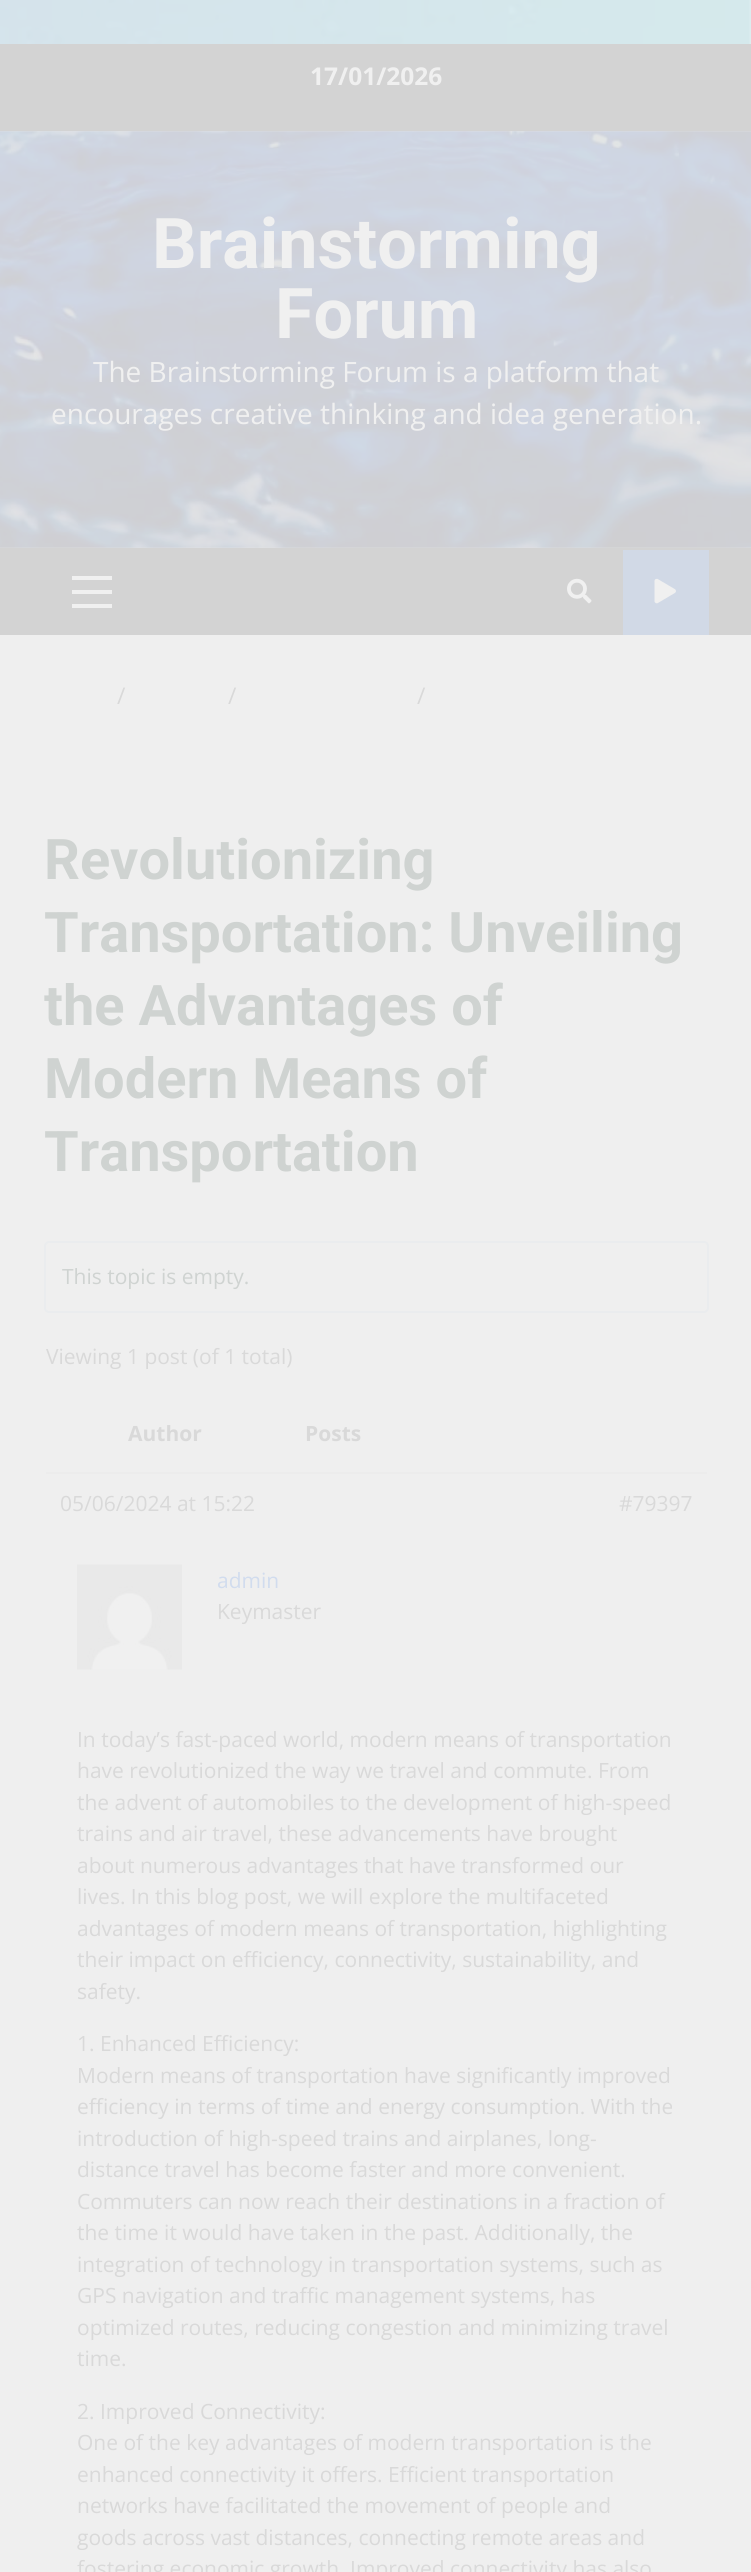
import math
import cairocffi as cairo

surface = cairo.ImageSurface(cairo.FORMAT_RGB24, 751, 2572)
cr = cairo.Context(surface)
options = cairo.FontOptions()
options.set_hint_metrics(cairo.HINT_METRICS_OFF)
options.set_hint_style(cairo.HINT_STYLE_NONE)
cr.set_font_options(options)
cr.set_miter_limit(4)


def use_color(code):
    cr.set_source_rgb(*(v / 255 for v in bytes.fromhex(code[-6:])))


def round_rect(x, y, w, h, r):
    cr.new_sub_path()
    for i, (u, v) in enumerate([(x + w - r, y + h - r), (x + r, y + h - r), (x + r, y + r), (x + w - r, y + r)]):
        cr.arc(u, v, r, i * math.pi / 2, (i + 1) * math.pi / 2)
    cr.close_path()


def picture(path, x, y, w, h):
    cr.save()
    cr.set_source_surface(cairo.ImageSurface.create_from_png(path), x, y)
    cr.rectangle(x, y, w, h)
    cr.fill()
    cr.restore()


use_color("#ffffff")
cr.paint()
picture("img1.png", 0, 0, 751, 44)
use_color("#efefef")
cr.rectangle(0, 131, 751, 2441)
cr.fill()
use_color("#d3d3d3")
cr.rectangle(0, 44, 751, 87)
cr.fill()
cr.select_font_face("Open Sans", cairo.FONT_SLANT_NORMAL, cairo.FONT_WEIGHT_BOLD)
cr.set_font_size(24.5)
use_color("#f0f0f0")
cr.move_to(310, 85)
cr.show_text("17/01/2026")
picture("img2.png", 0, 131, 751, 417)
cr.set_source_rgba(0.812, 0.812, 0.812, 0.33)
cr.rectangle(0, 131, 751, 417)
cr.fill()
cr.select_font_face("Roboto", cairo.FONT_SLANT_NORMAL, cairo.FONT_WEIGHT_BOLD)
cr.set_font_size(70)
use_color("#f0f0f0")
cr.move_to(152, 268)
cr.show_text("Brainstorming")
cr.move_to(275, 338)
cr.show_text("Forum")
cr.select_font_face("Open Sans")
cr.set_font_size(28)
cr.move_to(93, 382)
cr.show_text("The Brainstorming Forum is a platform that")
cr.move_to(51, 424)
cr.show_text("encourages creative thinking and idea generation.")
use_color("#d3d3d3")
cr.rectangle(0, 548, 751, 87)
cr.fill()
use_color("#f0f0f0")
cr.rectangle(72, 590, 40, 4)
cr.fill()
cr.rectangle(72, 576, 40, 4)
cr.fill()
cr.rectangle(72, 604, 40, 4)
cr.fill()
picture("img3.png", 567, 578, 25, 26)
use_color("#d1d9e6")
cr.rectangle(623, 550, 86, 85)
cr.fill()
picture("img4.png", 654, 578, 22, 26)
cr.set_font_size(23)
use_color("#d9d9d9")
cr.move_to(117, 704)
cr.show_text("/")
cr.move_to(228, 704)
cr.show_text("/")
cr.move_to(417, 704)
cr.show_text("/")
cr.select_font_face("Roboto", cairo.FONT_SLANT_NORMAL, cairo.FONT_WEIGHT_BOLD)
cr.set_font_size(56)
use_color("#cfd3d1")
cr.move_to(44, 879)
cr.show_text("Revolutionizing")
cr.move_to(44, 952)
cr.show_text("Transportation: Unveiling")
cr.move_to(44, 1025)
cr.show_text("the Advantages of")
cr.move_to(44, 1098)
cr.show_text("Modern Means of")
cr.move_to(44, 1171)
cr.show_text("Transportation")
round_rect(45, 1242, 663, 70, 4)
use_color("#eaecee")
cr.stroke()
cr.select_font_face("Open Sans")
cr.set_font_size(21)
use_color("#cfd3d1")
cr.move_to(62, 1284)
cr.show_text("This topic is empty.")
use_color("#d9d9d9")
cr.move_to(46, 1364)
cr.show_text("Viewing 1 post (of 1 total)")
cr.select_font_face("Open Sans", cairo.FONT_SLANT_NORMAL, cairo.FONT_WEIGHT_BOLD)
cr.move_to(128, 1441)
cr.show_text("Author")
cr.move_to(305, 1441)
cr.show_text("Posts")
use_color("#ececec")
cr.rectangle(46, 1472, 661, 2)
cr.fill()
cr.select_font_face("Open Sans")
use_color("#d9d9d9")
cr.move_to(60, 1511)
cr.show_text("05/06/2024 at 15:22")
cr.move_to(619, 1511)
cr.show_text("#79397")
picture("img5.png", 77, 1564, 105, 106)
use_color("#d1dcee")
cr.move_to(217, 1588)
cr.show_text("admin")
use_color("#d9d9d9")
cr.move_to(217, 1619)
cr.show_text("Keymaster")
cr.move_to(77, 1747)
cr.show_text("In today’s fast-paced world, modern means of transportation")
cr.move_to(77, 1778)
cr.show_text("have revolutionized the way we travel and commute. From")
cr.move_to(77, 1810)
cr.show_text("the advent of automobiles to the development of high-speed")
cr.move_to(77, 1841)
cr.show_text("trains and air travel, these advancements have brought")
cr.move_to(77, 1873)
cr.show_text("about numerous advantages that have transformed our")
cr.move_to(77, 1904)
cr.show_text("lives. In this blog post, we will explore the multifaceted")
cr.move_to(77, 1936)
cr.show_text("advantages of modern means of transportation, highlighting")
cr.move_to(77, 1967)
cr.show_text("their impact on efficiency, connectivity, sustainability, and")
cr.move_to(77, 1999)
cr.show_text("safety.")
cr.move_to(77, 2051)
cr.show_text("1. Enhanced Efficiency:")
cr.move_to(77, 2083)
cr.show_text("Modern means of transportation have significantly improved")
cr.move_to(77, 2114)
cr.show_text("efficiency in terms of time and energy consumption. With the")
cr.move_to(77, 2146)
cr.show_text("introduction of high-speed trains and airplanes, long-")
cr.move_to(77, 2177)
cr.show_text("distance travel has become faster and more convenient.")
cr.move_to(77, 2209)
cr.show_text("Commuters can now reach their destinations in a fraction of")
cr.move_to(77, 2240)
cr.show_text("the time it would have taken in the past. Additionally, the")
cr.move_to(77, 2272)
cr.show_text("integration of technology in transportation systems, such as")
cr.move_to(77, 2303)
cr.show_text("GPS navigation and traffic management systems, has")
cr.move_to(77, 2335)
cr.show_text("optimized routes, reducing congestion and minimizing travel")
cr.move_to(77, 2366)
cr.show_text("time.")
cr.move_to(77, 2419)
cr.show_text("2. Improved Connectivity:")
cr.move_to(77, 2450)
cr.show_text("One of the key advantages of modern transportation is the")
cr.move_to(77, 2482)
cr.show_text("enhanced connectivity it offers. Efficient transportation")
cr.move_to(77, 2513)
cr.show_text("networks have facilitated the movement of people and")
cr.move_to(77, 2545)
cr.show_text("goods across vast distances, connecting remote areas and")
cr.move_to(77, 2576)
cr.show_text("fostering economic growth. Improved connectivity has also")
surface.write_to_png("result.png")
